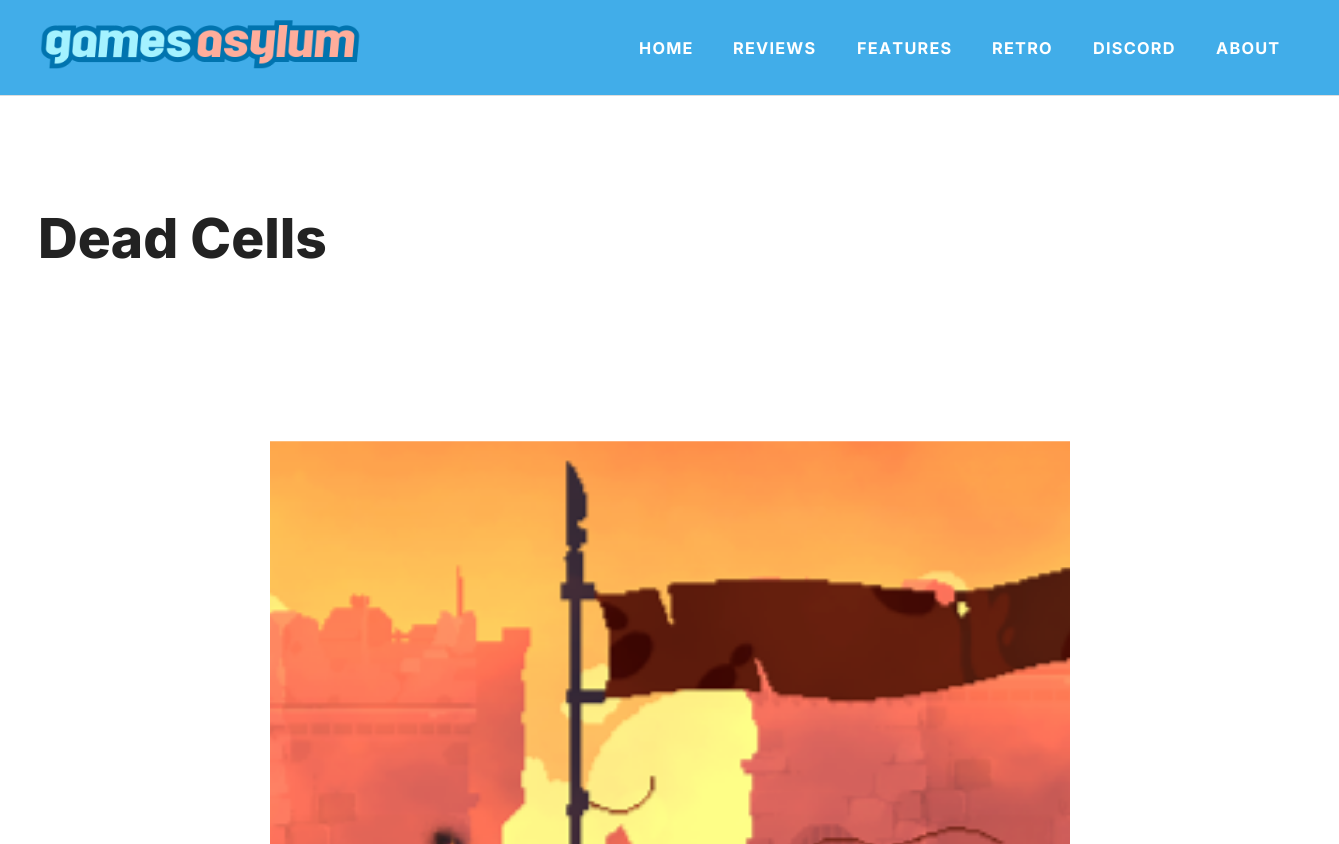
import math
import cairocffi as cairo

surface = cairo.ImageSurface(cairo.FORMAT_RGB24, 1339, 844)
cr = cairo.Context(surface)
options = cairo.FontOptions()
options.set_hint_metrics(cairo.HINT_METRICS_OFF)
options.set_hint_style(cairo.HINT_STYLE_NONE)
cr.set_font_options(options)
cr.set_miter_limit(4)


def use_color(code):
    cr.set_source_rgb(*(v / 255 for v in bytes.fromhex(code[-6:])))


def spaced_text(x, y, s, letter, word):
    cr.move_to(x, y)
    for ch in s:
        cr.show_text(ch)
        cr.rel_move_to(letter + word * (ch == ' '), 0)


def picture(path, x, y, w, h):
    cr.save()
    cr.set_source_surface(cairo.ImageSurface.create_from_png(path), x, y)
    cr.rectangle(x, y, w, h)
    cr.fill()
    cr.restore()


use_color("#ffffff")
cr.paint()
use_color("#41ade9")
cr.rectangle(0, 0, 1339, 95)
cr.fill()
use_color("#dddddd")
cr.rectangle(0, 95, 1339, 1)
cr.fill()
picture("img1.png", 41, 20, 319, 49)
cr.select_font_face("Inter", cairo.FONT_SLANT_NORMAL, cairo.FONT_WEIGHT_BOLD)
cr.set_font_size(16.25)
use_color("#ffffff")
spaced_text(639, 54, "HOME", 1.25, 0)
spaced_text(733, 54, "REVIEWS", 1.25, 0)
spaced_text(857, 54, "FEATURES", 1.25, 0)
spaced_text(992, 54, "RETRO", 1.25, 0)
spaced_text(1093, 54, "DISCORD", 1.25, 0)
spaced_text(1216, 54, "ABOUT", 1.25, 0)
cr.select_font_face("Inter ExtraBold")
cr.set_font_size(55)
use_color("#222222")
cr.move_to(38, 258)
cr.show_text("Dead Cells")
picture("img2.png", 270, 441, 800, 403)
surface.write_to_png("result.png")
